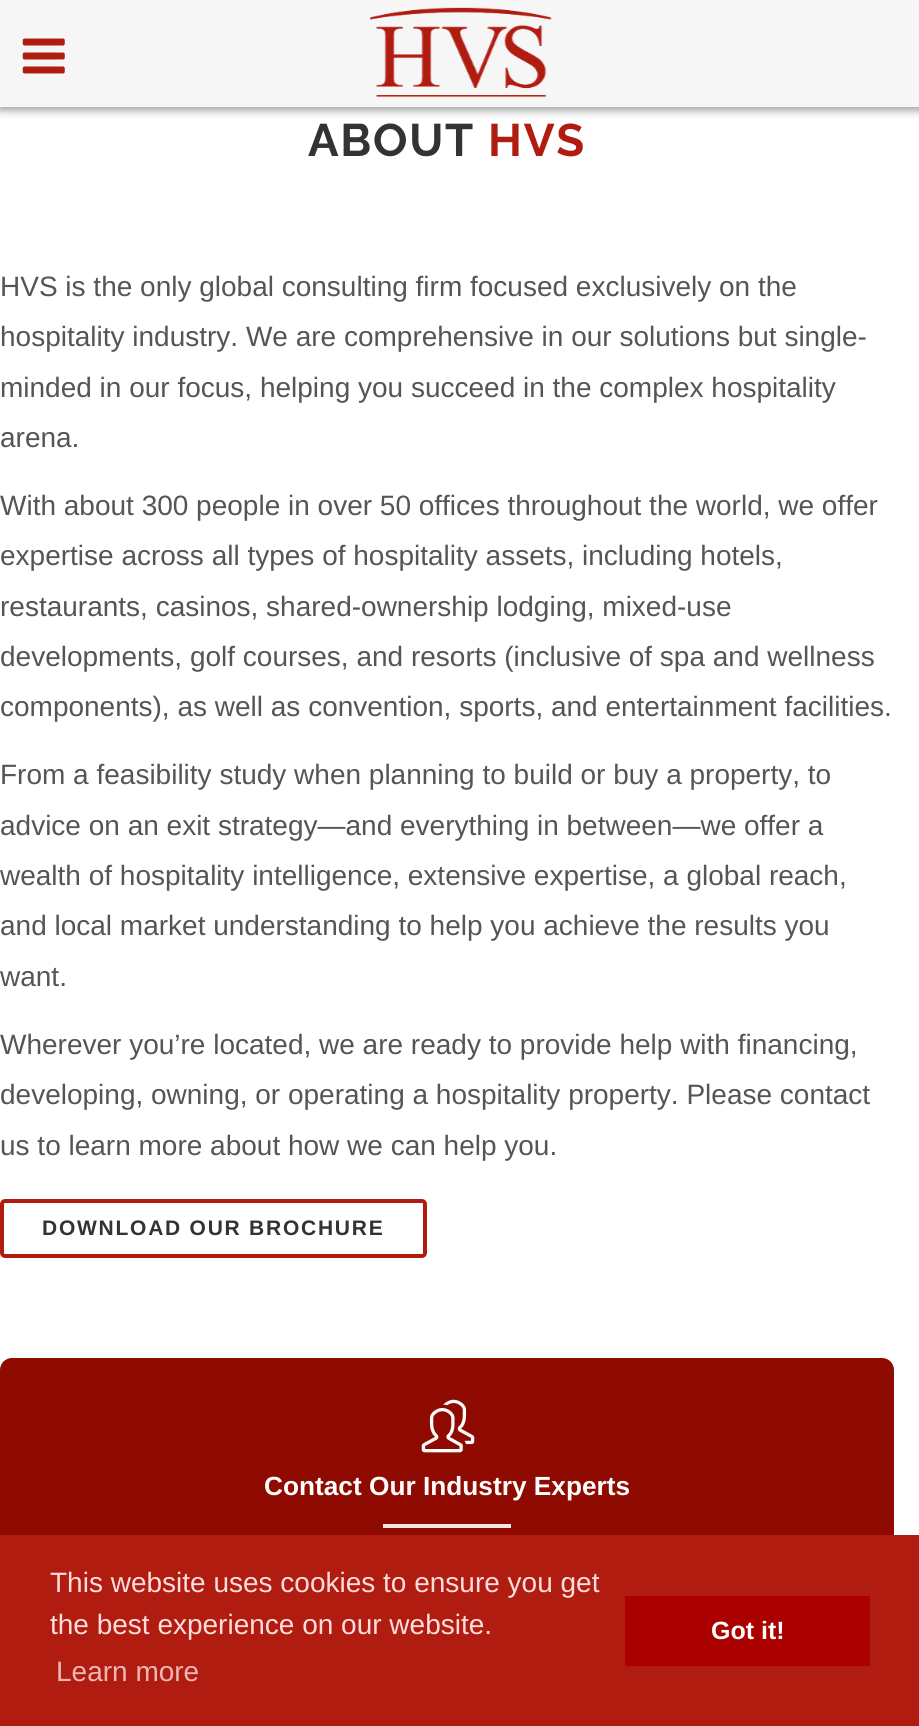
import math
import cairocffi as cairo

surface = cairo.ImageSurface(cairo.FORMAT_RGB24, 919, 1726)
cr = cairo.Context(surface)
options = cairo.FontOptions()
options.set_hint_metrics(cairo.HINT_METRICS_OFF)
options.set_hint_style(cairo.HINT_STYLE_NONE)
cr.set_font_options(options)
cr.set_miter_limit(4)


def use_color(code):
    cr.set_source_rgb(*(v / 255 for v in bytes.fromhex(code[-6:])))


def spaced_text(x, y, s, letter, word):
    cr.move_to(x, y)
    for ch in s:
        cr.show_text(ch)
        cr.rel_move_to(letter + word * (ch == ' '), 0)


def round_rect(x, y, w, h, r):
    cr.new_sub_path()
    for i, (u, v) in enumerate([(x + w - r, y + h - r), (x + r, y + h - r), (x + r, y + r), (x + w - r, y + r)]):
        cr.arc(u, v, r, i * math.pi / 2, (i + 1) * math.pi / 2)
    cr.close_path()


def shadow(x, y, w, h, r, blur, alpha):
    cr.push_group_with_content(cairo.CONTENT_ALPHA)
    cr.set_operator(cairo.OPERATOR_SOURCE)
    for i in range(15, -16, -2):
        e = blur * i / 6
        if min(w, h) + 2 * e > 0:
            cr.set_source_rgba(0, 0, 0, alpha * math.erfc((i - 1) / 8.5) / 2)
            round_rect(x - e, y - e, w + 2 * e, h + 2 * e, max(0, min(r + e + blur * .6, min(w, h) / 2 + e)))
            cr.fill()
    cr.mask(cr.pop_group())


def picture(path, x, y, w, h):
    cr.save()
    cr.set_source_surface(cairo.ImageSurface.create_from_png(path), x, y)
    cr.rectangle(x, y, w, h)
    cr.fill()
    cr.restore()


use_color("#ffffff")
cr.paint()
use_color("#323232")
shadow(0, 4, 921, 106, 0, 4.5, 0.5)
use_color("#f6f6f6")
cr.rectangle(0, 0, 919, 107)
cr.fill()
picture("img1.png", 22, 38, 43, 36)
picture("img2.png", 369, 7, 183, 91)
cr.select_font_face("Raleway", cairo.FONT_SLANT_NORMAL, cairo.FONT_WEIGHT_BOLD)
cr.set_font_size(45.5)
use_color("#333333")
spaced_text(308, 156, "ABOUT", 1.75, 0)
use_color("#b11c11")
spaced_text(488, 156, "HVS", 1.75, 0)
cr.select_font_face("Liberation Sans")
cr.set_font_size(28)
use_color("#555555")
cr.move_to(0, 296)
cr.show_text("HVS is the only global consulting firm focused exclusively on the")
cr.move_to(0, 346)
cr.show_text("hospitality industry. We are comprehensive in our solutions but single-")
cr.move_to(0, 397)
cr.show_text("minded in our focus, helping you succeed in the complex hospitality")
cr.move_to(0, 447)
cr.show_text("arena.")
cr.move_to(0, 515)
cr.show_text("With about 300 people in over 50 offices throughout the world, we offer")
cr.move_to(0, 565)
cr.show_text("expertise across all types of hospitality assets, including hotels,")
cr.move_to(0, 616)
cr.show_text("restaurants, casinos, shared-ownership lodging, mixed-use")
cr.move_to(0, 666)
cr.show_text("developments, golf courses, and resorts (inclusive of spa and wellness")
cr.move_to(0, 716)
cr.show_text("components), as well as convention, sports, and entertainment facilities.")
cr.move_to(0, 784)
cr.show_text("From a feasibility study when planning to build or buy a property, to")
cr.move_to(0, 835)
cr.show_text("advice on an exit strategy—and everything in between—we offer a")
cr.move_to(0, 885)
cr.show_text("wealth of hospitality intelligence, extensive expertise, a global reach,")
cr.move_to(0, 935)
cr.show_text("and local market understanding to help you achieve the results you")
cr.move_to(0, 986)
cr.show_text("want.")
cr.move_to(0, 1054)
cr.show_text("Wherever you’re located, we are ready to provide help with financing,")
cr.move_to(0, 1104)
cr.show_text("developing, owning, or operating a hospitality property. Please contact")
cr.move_to(0, 1155)
cr.show_text("us to learn more about how we can help you.")
round_rect(2, 1201, 423, 55, 3)
use_color("#b11c11")
cr.set_line_width(4)
cr.stroke()
cr.select_font_face("Liberation Sans", cairo.FONT_SLANT_NORMAL, cairo.FONT_WEIGHT_BOLD)
cr.set_font_size(21)
use_color("#333333")
spaced_text(42, 1235, "DOWNLOAD OUR BROCHURE", 1.75, 0)
use_color("#8f0a00")
round_rect(0, 1358, 894, 333, 12)
cr.fill()
picture("img3.png", 421, 1399, 54, 54)
cr.set_font_size(26.25)
use_color("#ffffff")
cr.move_to(264, 1495)
cr.show_text("Contact Our Industry Experts")
use_color("#f4e7e6")
cr.rectangle(383, 1524, 128, 4)
cr.fill()
use_color("#b11c11")
cr.rectangle(0, 1535, 919, 191)
cr.fill()
cr.select_font_face("Liberation Sans")
cr.set_font_size(28)
use_color("#ffdddd")
cr.move_to(50, 1592)
cr.show_text("This website uses cookies to ensure you get")
cr.move_to(50, 1634)
cr.show_text("the best experience on our website.")
use_color("#efb6b4")
cr.move_to(56, 1681)
cr.show_text("Learn more")
use_color("#aa0000")
cr.rectangle(625, 1596, 245, 70)
cr.fill()
cr.select_font_face("Liberation Sans", cairo.FONT_SLANT_NORMAL, cairo.FONT_WEIGHT_BOLD)
cr.set_font_size(25)
use_color("#ffffff")
cr.move_to(711, 1639)
cr.show_text("Got it!")
surface.write_to_png("result.png")
